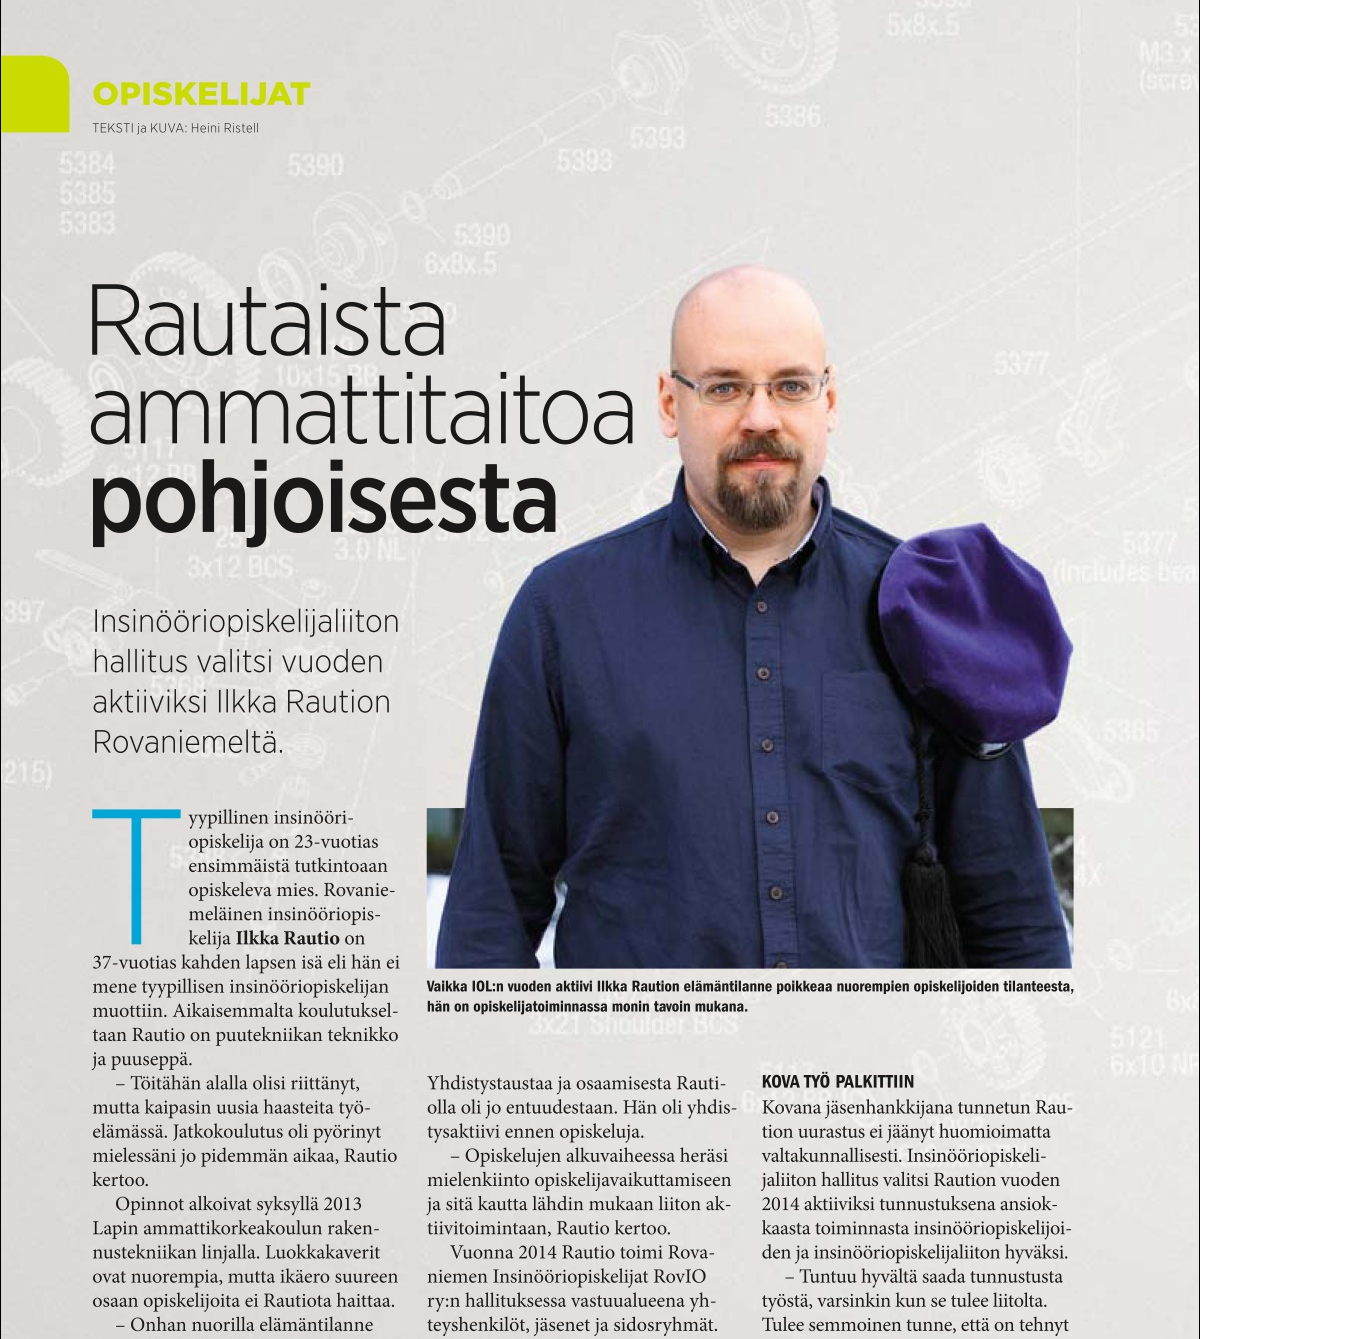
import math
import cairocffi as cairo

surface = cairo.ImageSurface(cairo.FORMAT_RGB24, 1363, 1339)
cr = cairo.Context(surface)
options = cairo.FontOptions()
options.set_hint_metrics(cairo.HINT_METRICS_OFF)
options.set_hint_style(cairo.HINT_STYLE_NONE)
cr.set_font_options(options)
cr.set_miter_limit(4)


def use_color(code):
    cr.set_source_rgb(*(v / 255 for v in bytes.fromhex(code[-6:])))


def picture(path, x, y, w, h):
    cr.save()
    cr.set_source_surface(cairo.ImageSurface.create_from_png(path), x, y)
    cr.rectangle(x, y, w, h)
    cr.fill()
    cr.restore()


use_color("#ffffff")
cr.paint()
use_color("#000000")
cr.rectangle(0, 0, 1200, 1339)
cr.fill()
picture("img1.png", 1, 0, 1198, 1339)
surface.write_to_png("result.png")
